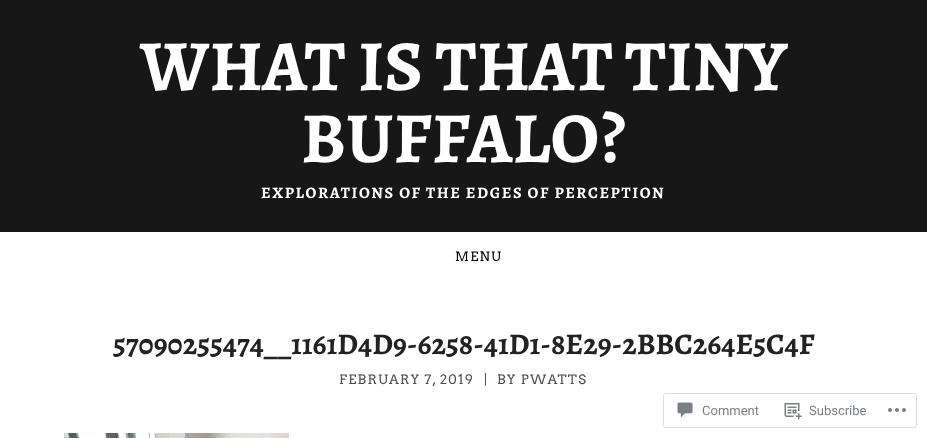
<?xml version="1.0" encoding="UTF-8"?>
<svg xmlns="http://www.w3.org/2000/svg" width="927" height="438">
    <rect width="100%" height="100%" fill="#FFFFFF"/>
    <rect x="0" y="0" width="927" height="232" fill="#171717"/>
    <text x="140" y="90" font-family="Alegreya" font-size="72" font-weight="700" fill="#FFFFFF">WHAT IS THAT TINY</text>
    <text x="301" y="162" font-family="Alegreya" font-size="72" font-weight="700" fill="#FFFFFF">BUFFALO?</text>
    <text x="261" y="198" font-family="Alegreya" font-size="16" font-weight="700" letter-spacing="1.6" fill="#FFFFFF">EXPLORATIONS OF THE EDGES OF PERCEPTION</text>
    <text x="455" y="261" font-family="Arvo" font-size="13" letter-spacing="1.25" fill="#000000">MENU</text>
    <text x="113" y="354" font-family="Alegreya" font-size="30" font-weight="700" fill="#222222">57090255474__1161D4D9-6258-41D1-8E29-2BBC264E5C4F</text>
    <text x="339" y="384" font-family="Arvo" font-size="13" letter-spacing="1.25" fill="#4D4D4D">FEBRUARY 7, 2019</text>
    <text x="484" y="384" font-family="Arvo" font-size="13" letter-spacing="1.25" fill="#4D4D4D">|</text>
    <text x="497" y="384" font-family="Arvo" font-size="13" letter-spacing="1.25" fill="#4D4D4D">BY PWATTS</text>
    <image x="64" y="433" width="225" height="5" href="img_01.png"/>
    <rect x="663.5" y="393.5" width="253" height="34" rx="2.5" fill="none" stroke="#DDDDDF"/>
    <image x="677" y="402" width="16" height="16" href="img_02.png"/>
    <text x="702" y="415" font-family="Roboto" font-size="13" fill="#7B7F85">Comment</text>
    <image x="784" y="403" width="18" height="17" href="img_03.png"/>
    <text x="809" y="415" font-family="Roboto" font-size="13" fill="#7B7F85">Subscribe</text>
    <image x="888" y="408" width="18" height="4" href="img_04.png"/>
</svg>
